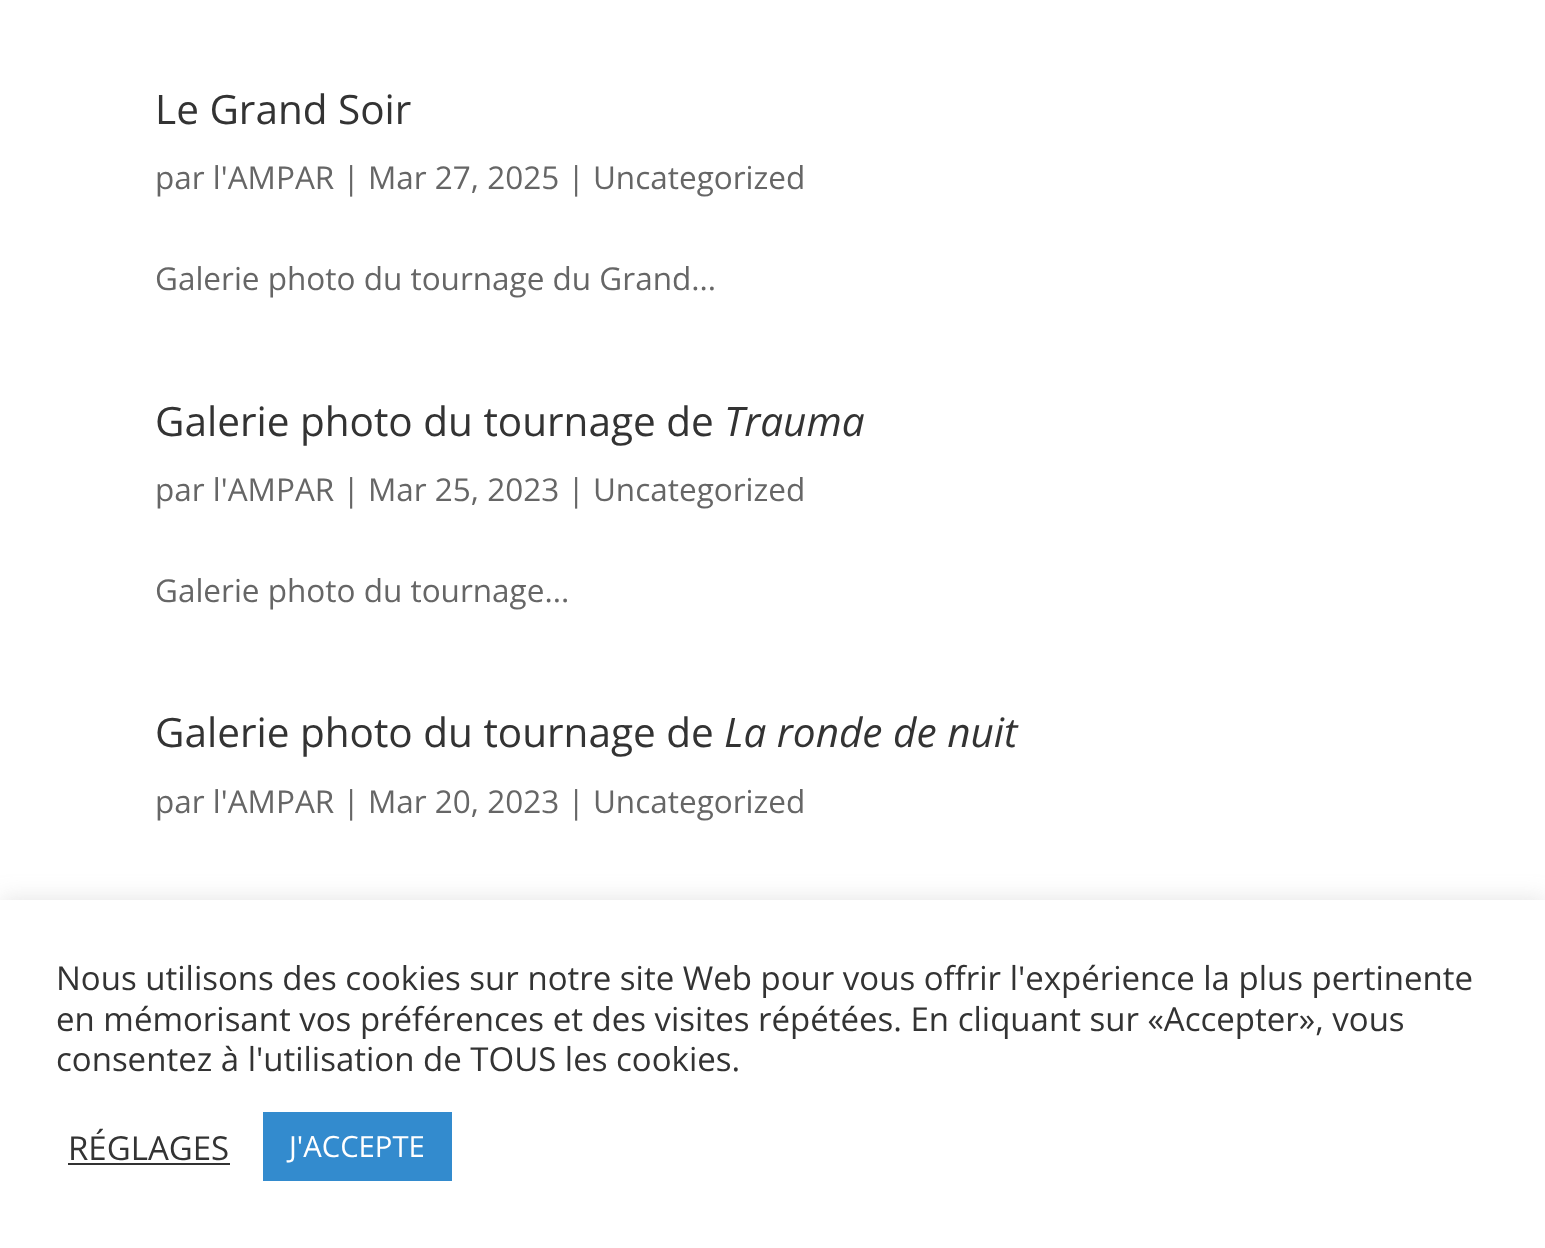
<?xml version="1.0" encoding="UTF-8"?>
<svg xmlns="http://www.w3.org/2000/svg" width="1545" height="1248">
    <defs>
        <filter id="blur1" x="-50%" y="-200%" width="200%" height="500%"><feGaussianBlur stdDeviation="11"/></filter>
    </defs>
    <rect width="100%" height="100%" fill="#FFFFFF"/>
    <text x="155" y="124" font-family="Open Sans" font-size="40.5" fill="#333333">Le Grand Soir</text>
    <text x="155" y="189" font-family="Open Sans" font-size="31.5" fill="#666666">par l'AMPAR | Mar 27, 2025 | Uncategorized</text>
    <text x="155" y="290" font-family="Open Sans" font-size="31.5" fill="#666666">Galerie photo du tournage du Grand...</text>
    <text x="155" y="436" font-family="Open Sans" font-size="40.5" fill="#333333">Galerie photo du tournage de</text>
    <text x="724" y="436" font-family="Open Sans" font-size="40.5" font-style="italic" fill="#333333">Trauma</text>
    <text x="155" y="501" font-family="Open Sans" font-size="31.5" fill="#666666">par l'AMPAR | Mar 25, 2023 | Uncategorized</text>
    <text x="155" y="602" font-family="Open Sans" font-size="31.5" fill="#666666">Galerie photo du tournage...</text>
    <text x="155" y="747" font-family="Open Sans" font-size="40.5" fill="#333333">Galerie photo du tournage de</text>
    <text x="724" y="747" font-family="Open Sans" font-size="40.5" font-style="italic" fill="#333333">La ronde de nuit</text>
    <text x="155" y="813" font-family="Open Sans" font-size="31.5" fill="#666666">par l'AMPAR | Mar 20, 2023 | Uncategorized</text>
    <rect x="0" y="898" width="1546" height="349" fill="#ACABAB" fill-opacity="0.3" filter="url(#blur1)"/>
    <rect x="0" y="900" width="1545" height="348" fill="#FFFFFF"/>
    <text font-family="Open Sans" font-size="33" fill="#333333">
        <tspan x="56" y="990">Nous utilisons des cookies sur notre site Web pour vous offrir l'expérience la plus pertinente</tspan>
        <tspan x="56" y="1031">en mémorisant vos préférences et des visites répétées. En cliquant sur «Accepter», vous</tspan>
        <tspan x="56" y="1071">consentez à l'utilisation de TOUS les cookies.</tspan>
    </text>
    <text x="68" y="1160" font-family="Open Sans" font-size="33" fill="#333333">RÉGLAGES</text>
    <rect x="68" y="1163" width="162" height="2" fill="#333333"/>
    <rect x="263" y="1112" width="189" height="69" fill="#338BCE"/>
    <text x="289" y="1157" font-family="Open Sans" font-size="29.25" fill="#FFFFFF">J'ACCEPTE</text>
</svg>
